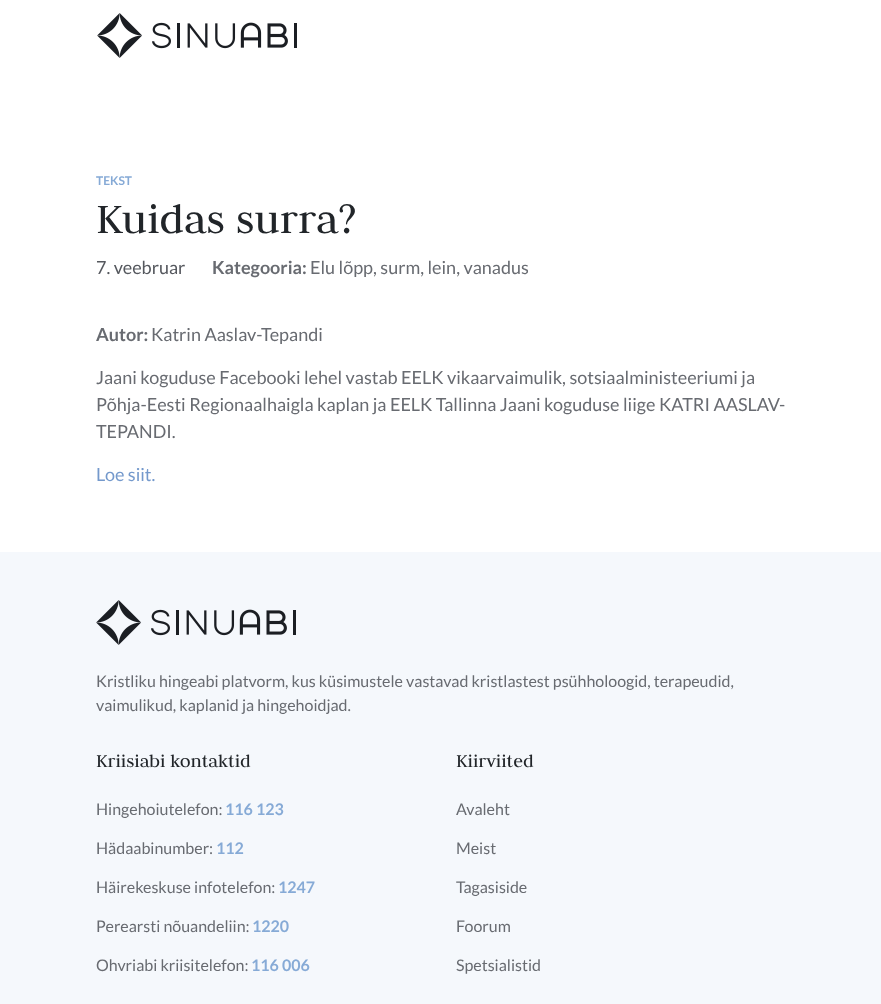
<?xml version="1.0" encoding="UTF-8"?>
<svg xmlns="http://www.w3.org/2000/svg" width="881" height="1004">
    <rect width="100%" height="100%" fill="#FFFFFF"/>
    <image x="97" y="13" width="200" height="45" href="img_01.png"/>
    <text x="96" y="185" font-family="Lato" font-size="12" font-weight="700" fill="#86AAD6">TEKST</text>
    <text x="96" y="233" font-family="Judson" font-size="46" fill="#212529">Kuidas surra?</text>
    <text x="96" y="274" font-family="Lato" font-size="18" fill="#55585E">7. veebruar</text>
    <text x="212" y="274" font-family="Lato" font-size="18" font-weight="700" fill="#686B71">Kategooria:</text>
    <text x="310" y="274" font-family="Lato" font-size="18" fill="#686B71">Elu lõpp, surm, lein, vanadus</text>
    <text x="96" y="341" font-family="Lato" font-size="18" font-weight="700" fill="#686B71">Autor:</text>
    <text x="151" y="341" font-family="Lato" font-size="18" fill="#686B71">Katrin Aaslav-Tepandi</text>
    <text font-family="Lato" font-size="18" fill="#686B71">
        <tspan x="96" y="384">Jaani koguduse Facebooki lehel vastab EELK vikaarvaimulik, sotsiaalministeeriumi ja</tspan>
        <tspan x="96" y="411">Põhja-Eesti Regionaalhaigla kaplan ja EELK Tallinna Jaani koguduse liige KATRI AASLAV-</tspan>
        <tspan x="96" y="438">TEPANDI.</tspan>
    </text>
    <text x="96" y="481" font-family="Lato" font-size="18" fill="#7499CC">Loe siit.</text>
    <rect x="0" y="552" width="881" height="452" fill="#F5F8FC"/>
    <image x="96" y="600" width="200" height="45" href="img_02.png"/>
    <text font-family="Lato" font-size="16" fill="#686B71">
        <tspan x="96" y="687">Kristliku hingeabi platvorm, kus küsimustele vastavad kristlastest psühholoogid, terapeudid,</tspan>
        <tspan x="96" y="711">vaimulikud, kaplanid ja hingehoidjad.</tspan>
    </text>
    <text x="96" y="767" font-family="Judson" font-size="20" fill="#212529">Kriisiabi kontaktid</text>
    <text x="96" y="815" font-family="Lato" font-size="16" fill="#686B71">Hingehoiutelefon:</text>
    <text x="225" y="815" font-family="Lato" font-size="16" font-weight="700" fill="#86AAD6">116 123</text>
    <text x="96" y="854" font-family="Lato" font-size="16" fill="#686B71">Hädaabinumber:</text>
    <text x="216" y="854" font-family="Lato" font-size="16" font-weight="700" fill="#86AAD6">112</text>
    <text x="96" y="893" font-family="Lato" font-size="16" fill="#686B71">Häirekeskuse infotelefon:</text>
    <text x="278" y="893" font-family="Lato" font-size="16" font-weight="700" fill="#86AAD6">1247</text>
    <text x="96" y="932" font-family="Lato" font-size="16" fill="#686B71">Perearsti nõuandeliin:</text>
    <text x="252" y="932" font-family="Lato" font-size="16" font-weight="700" fill="#86AAD6">1220</text>
    <text x="96" y="971" font-family="Lato" font-size="16" fill="#686B71">Ohvriabi kriisitelefon:</text>
    <text x="251" y="971" font-family="Lato" font-size="16" font-weight="700" fill="#86AAD6">116 006</text>
    <text x="456" y="767" font-family="Judson" font-size="20" fill="#212529">Kiirviited</text>
    <text x="456" y="815" font-family="Lato" font-size="16" fill="#686B71">Avaleht</text>
    <text x="456" y="854" font-family="Lato" font-size="16" fill="#686B71">Meist</text>
    <text x="456" y="893" font-family="Lato" font-size="16" fill="#686B71">Tagasiside</text>
    <text x="456" y="932" font-family="Lato" font-size="16" fill="#686B71">Foorum</text>
    <text x="456" y="971" font-family="Lato" font-size="16" fill="#686B71">Spetsialistid</text>
</svg>
